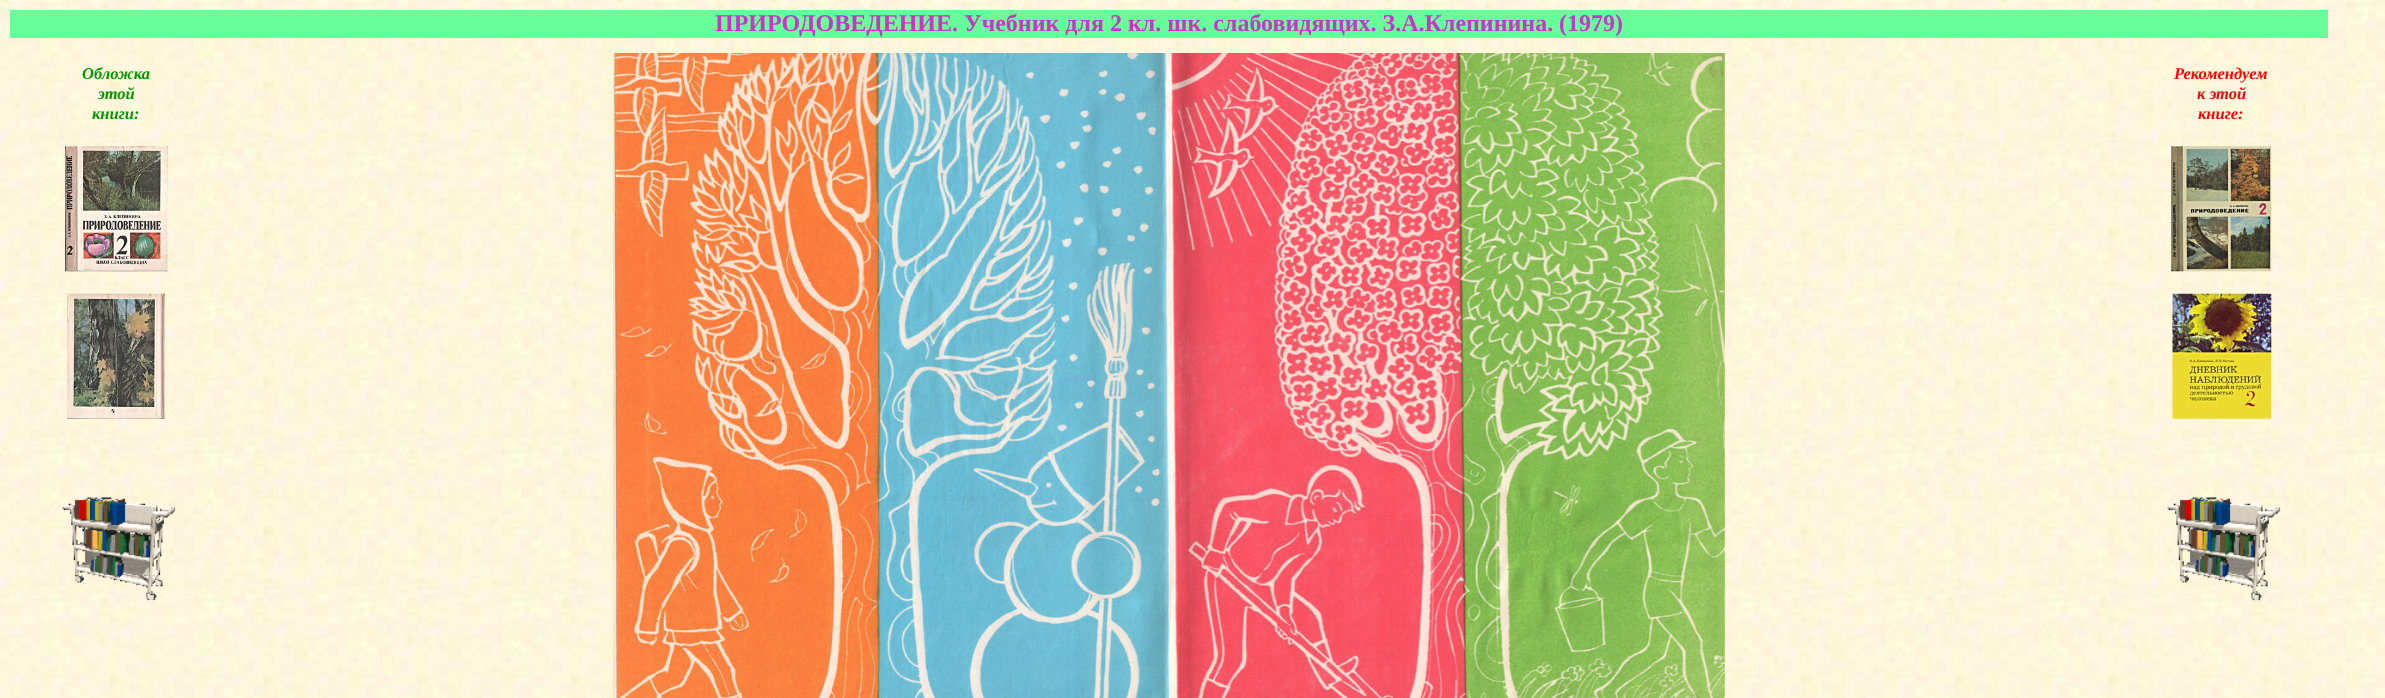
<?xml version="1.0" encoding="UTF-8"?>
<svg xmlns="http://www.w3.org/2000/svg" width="2385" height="698">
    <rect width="100%" height="100%" fill="#FFFFFF"/>
    <image x="0" y="0" width="2385" height="698" href="img_01.png"/>
    <rect x="10" y="10" width="2318" height="28" fill="#66FF99"/>
    <text x="715" y="31" font-family="Liberation Serif" font-size="24" font-weight="700" fill="#CC33CC">ПРИРОДОВЕДЕНИЕ. Учебник для 2 кл. шк. слабовидящих. З.А.Клепинина.</text>
    <text x="1559" y="31" font-family="Liberation Serif" font-size="24" font-weight="700" fill="#CC33CC">(1979)</text>
    <text x="82" y="79" font-family="Liberation Serif" font-size="16.5" font-weight="700" font-style="italic" fill="#009900">Обложка</text>
    <text x="98" y="99" font-family="Liberation Serif" font-size="16.5" font-weight="700" font-style="italic" fill="#009900">этой</text>
    <text x="92" y="119" font-family="Liberation Serif" font-size="16.5" font-weight="700" font-style="italic" fill="#009900">книги:</text>
    <image x="65" y="146" width="103" height="126" href="img_02.png"/>
    <image x="67" y="293" width="98" height="126" href="img_03.png"/>
    <image x="62" y="497" width="114" height="104" href="img_04.png"/>
    <image x="613" y="53" width="1112" height="645" href="img_05.png"/>
    <text x="2174" y="79" font-family="Liberation Serif" font-size="16.5" font-weight="700" font-style="italic" fill="#FF0000">Рекомендуем</text>
    <text x="2197" y="99" font-family="Liberation Serif" font-size="16.5" font-weight="700" font-style="italic" fill="#FF0000">к этой</text>
    <text x="2198" y="119" font-family="Liberation Serif" font-size="16.5" font-weight="700" font-style="italic" fill="#FF0000">книге:</text>
    <image x="2171" y="146" width="101" height="126" href="img_06.png"/>
    <image x="2172" y="293" width="100" height="126" href="img_07.png"/>
    <image x="2167" y="497" width="114" height="104" href="img_08.png"/>
</svg>
